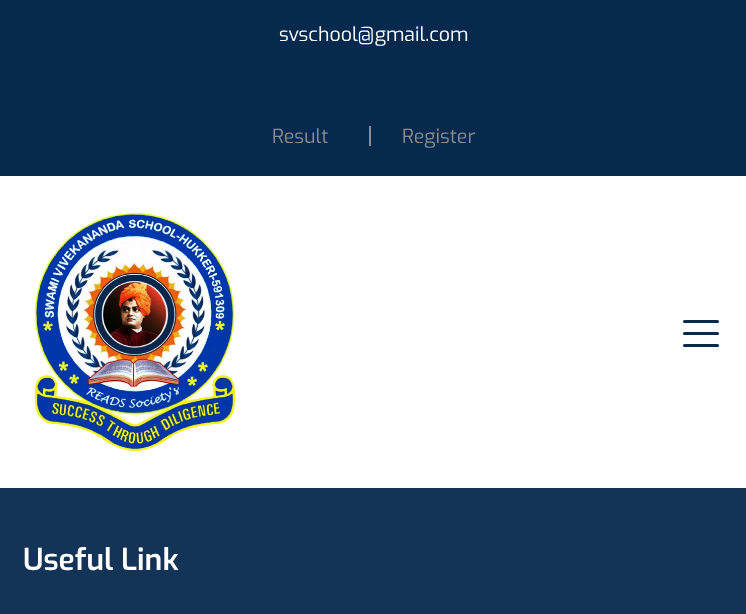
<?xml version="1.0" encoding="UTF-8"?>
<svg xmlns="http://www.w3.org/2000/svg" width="746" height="614">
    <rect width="100%" height="100%" fill="#133456"/>
    <rect x="0" y="176" width="746" height="312" fill="#FFFFFF"/>
    <rect x="0" y="0" width="746" height="176" fill="#07294D"/>
    <text x="279" y="41" font-family="Exo" font-size="19.5" fill="#FFFFFF">svschool@gmail.com</text>
    <text x="272" y="143" font-family="Exo" font-size="19.5" fill="#8D8D8D">Result</text>
    <rect x="369" y="126" width="2" height="20" fill="#8D8D8D"/>
    <text x="402" y="143" font-family="Exo" font-size="19.5" fill="#8D8D8D">Register</text>
    <image x="34" y="212" width="202" height="240" href="img_01.png"/>
    <rect x="683" y="344" width="36" height="3" rx="1.5" fill="#07294D"/>
    <rect x="683" y="332" width="36" height="3" rx="1.5" fill="#07294D"/>
    <rect x="683" y="320" width="36" height="3" rx="1.5" fill="#07294D"/>
    <text x="23" y="570" font-family="Exo" font-size="30" font-weight="600" fill="#FFFFFF">Useful Link</text>
</svg>
